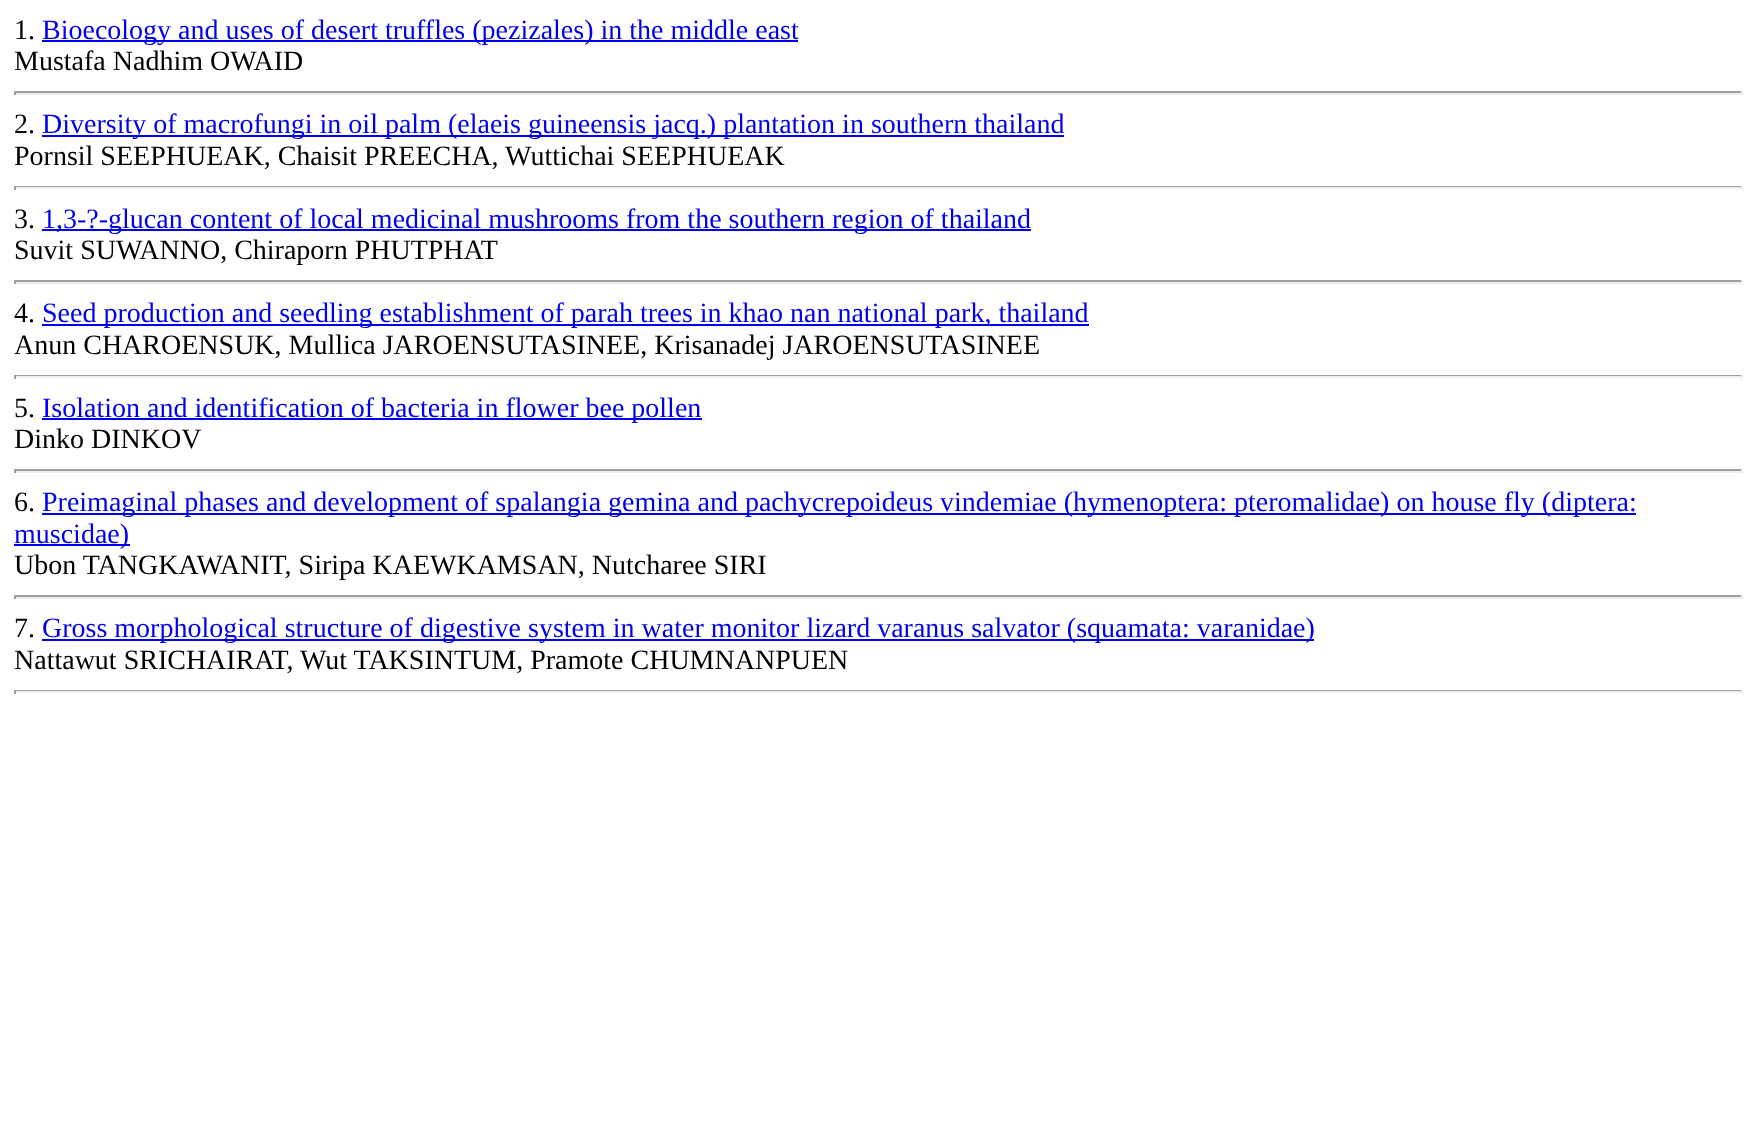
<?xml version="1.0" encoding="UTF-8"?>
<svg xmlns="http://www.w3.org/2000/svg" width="1756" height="1139">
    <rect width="100%" height="100%" fill="#FFFFFF"/>
    <text x="14" y="39" font-family="Liberation Serif" font-size="28" fill="#000000">1.</text>
    <rect x="42" y="40" width="756" height="2" fill="#0000EE"/>
    <text x="42" y="39" font-family="Liberation Serif" font-size="28" fill="#0000EE">Bioecology and uses of desert truffles (pezizales) in the middle east</text>
    <text x="14" y="70" font-family="Liberation Serif" font-size="28" fill="#000000">Mustafa Nadhim OWAID</text>
    <rect x="14" y="91" width="1729" height="2" fill="#9F9F9F"/>
    <rect x="1741" y="91" width="2" height="4" fill="#EEEEEE"/>
    <rect x="14" y="93" width="1729" height="2" fill="#EEEEEE"/>
    <rect x="14" y="91" width="2" height="4" fill="#9F9F9F"/>
    <text x="14" y="133" font-family="Liberation Serif" font-size="28" fill="#000000">2.</text>
    <rect x="42" y="135" width="1022" height="2" fill="#0000EE"/>
    <text x="42" y="133" font-family="Liberation Serif" font-size="28" fill="#0000EE">Diversity of macrofungi in oil palm (elaeis guineensis jacq.) plantation in southern thailand</text>
    <text x="14" y="165" font-family="Liberation Serif" font-size="28" fill="#000000">Pornsil SEEPHUEAK, Chaisit PREECHA, Wuttichai SEEPHUEAK</text>
    <rect x="14" y="186" width="1729" height="1" fill="#9F9F9F"/>
    <rect x="1741" y="186" width="2" height="4" fill="#EEEEEE"/>
    <rect x="14" y="187" width="1729" height="2" fill="#EEEEEE"/>
    <rect x="14" y="186" width="2" height="4" fill="#9F9F9F"/>
    <text x="14" y="228" font-family="Liberation Serif" font-size="28" fill="#000000">3.</text>
    <rect x="42" y="229" width="989" height="2" fill="#0000EE"/>
    <text x="42" y="228" font-family="Liberation Serif" font-size="28" fill="#0000EE">1,3-?-glucan content of local medicinal mushrooms from the southern region of thailand</text>
    <text x="14" y="259" font-family="Liberation Serif" font-size="28" fill="#000000">Suvit SUWANNO, Chiraporn PHUTPHAT</text>
    <rect x="14" y="280" width="1729" height="2" fill="#9F9F9F"/>
    <rect x="1741" y="280" width="2" height="4" fill="#EEEEEE"/>
    <rect x="14" y="282" width="1729" height="2" fill="#EEEEEE"/>
    <rect x="14" y="280" width="2" height="4" fill="#9F9F9F"/>
    <text x="14" y="322" font-family="Liberation Serif" font-size="28" fill="#000000">4.</text>
    <rect x="42" y="324" width="1047" height="2" fill="#0000EE"/>
    <text x="42" y="322" font-family="Liberation Serif" font-size="28" fill="#0000EE">Seed production and seedling establishment of parah trees in khao nan national park, thailand</text>
    <text x="14" y="354" font-family="Liberation Serif" font-size="28" fill="#000000">Anun CHAROENSUK, Mullica JAROENSUTASINEE, Krisanadej JAROENSUTASINEE</text>
    <rect x="14" y="375" width="1729" height="1" fill="#9F9F9F"/>
    <rect x="1741" y="375" width="2" height="4" fill="#EEEEEE"/>
    <rect x="14" y="376" width="1729" height="2" fill="#EEEEEE"/>
    <rect x="14" y="375" width="2" height="4" fill="#9F9F9F"/>
    <text x="14" y="417" font-family="Liberation Serif" font-size="28" fill="#000000">5.</text>
    <rect x="42" y="418" width="660" height="2" fill="#0000EE"/>
    <text x="42" y="417" font-family="Liberation Serif" font-size="28" fill="#0000EE">Isolation and identification of bacteria in flower bee pollen</text>
    <text x="14" y="448" font-family="Liberation Serif" font-size="28" fill="#000000">Dinko DINKOV</text>
    <rect x="14" y="469" width="1729" height="2" fill="#9F9F9F"/>
    <rect x="1741" y="469" width="2" height="4" fill="#EEEEEE"/>
    <rect x="14" y="471" width="1729" height="2" fill="#EEEEEE"/>
    <rect x="14" y="469" width="2" height="4" fill="#9F9F9F"/>
    <text x="14" y="511" font-family="Liberation Serif" font-size="28" fill="#000000">6.</text>
    <rect x="42" y="513" width="1594" height="2" fill="#0000EE"/>
    <text x="42" y="511" font-family="Liberation Serif" font-size="28" fill="#0000EE">Preimaginal phases and development of spalangia gemina and pachycrepoideus vindemiae (hymenoptera: pteromalidae) on house fly (diptera:</text>
    <rect x="14" y="544" width="116" height="2" fill="#0000EE"/>
    <text x="14" y="543" font-family="Liberation Serif" font-size="28" fill="#0000EE">muscidae)</text>
    <text x="14" y="574" font-family="Liberation Serif" font-size="28" fill="#000000">Ubon TANGKAWANIT, Siripa KAEWKAMSAN, Nutcharee SIRI</text>
    <rect x="14" y="595" width="1729" height="2" fill="#9F9F9F"/>
    <rect x="1741" y="595" width="2" height="4" fill="#EEEEEE"/>
    <rect x="14" y="597" width="1729" height="2" fill="#EEEEEE"/>
    <rect x="14" y="595" width="2" height="4" fill="#9F9F9F"/>
    <text x="14" y="637" font-family="Liberation Serif" font-size="28" fill="#000000">7.</text>
    <rect x="42" y="639" width="1272" height="2" fill="#0000EE"/>
    <text x="42" y="637" font-family="Liberation Serif" font-size="28" fill="#0000EE">Gross morphological structure of digestive system in water monitor lizard varanus salvator (squamata: varanidae)</text>
    <text x="14" y="669" font-family="Liberation Serif" font-size="28" fill="#000000">Nattawut SRICHAIRAT, Wut TAKSINTUM, Pramote CHUMNANPUEN</text>
    <rect x="14" y="690" width="1729" height="1" fill="#9F9F9F"/>
    <rect x="1741" y="690" width="2" height="4" fill="#EEEEEE"/>
    <rect x="14" y="691" width="1729" height="2" fill="#EEEEEE"/>
    <rect x="14" y="690" width="2" height="4" fill="#9F9F9F"/>
</svg>
